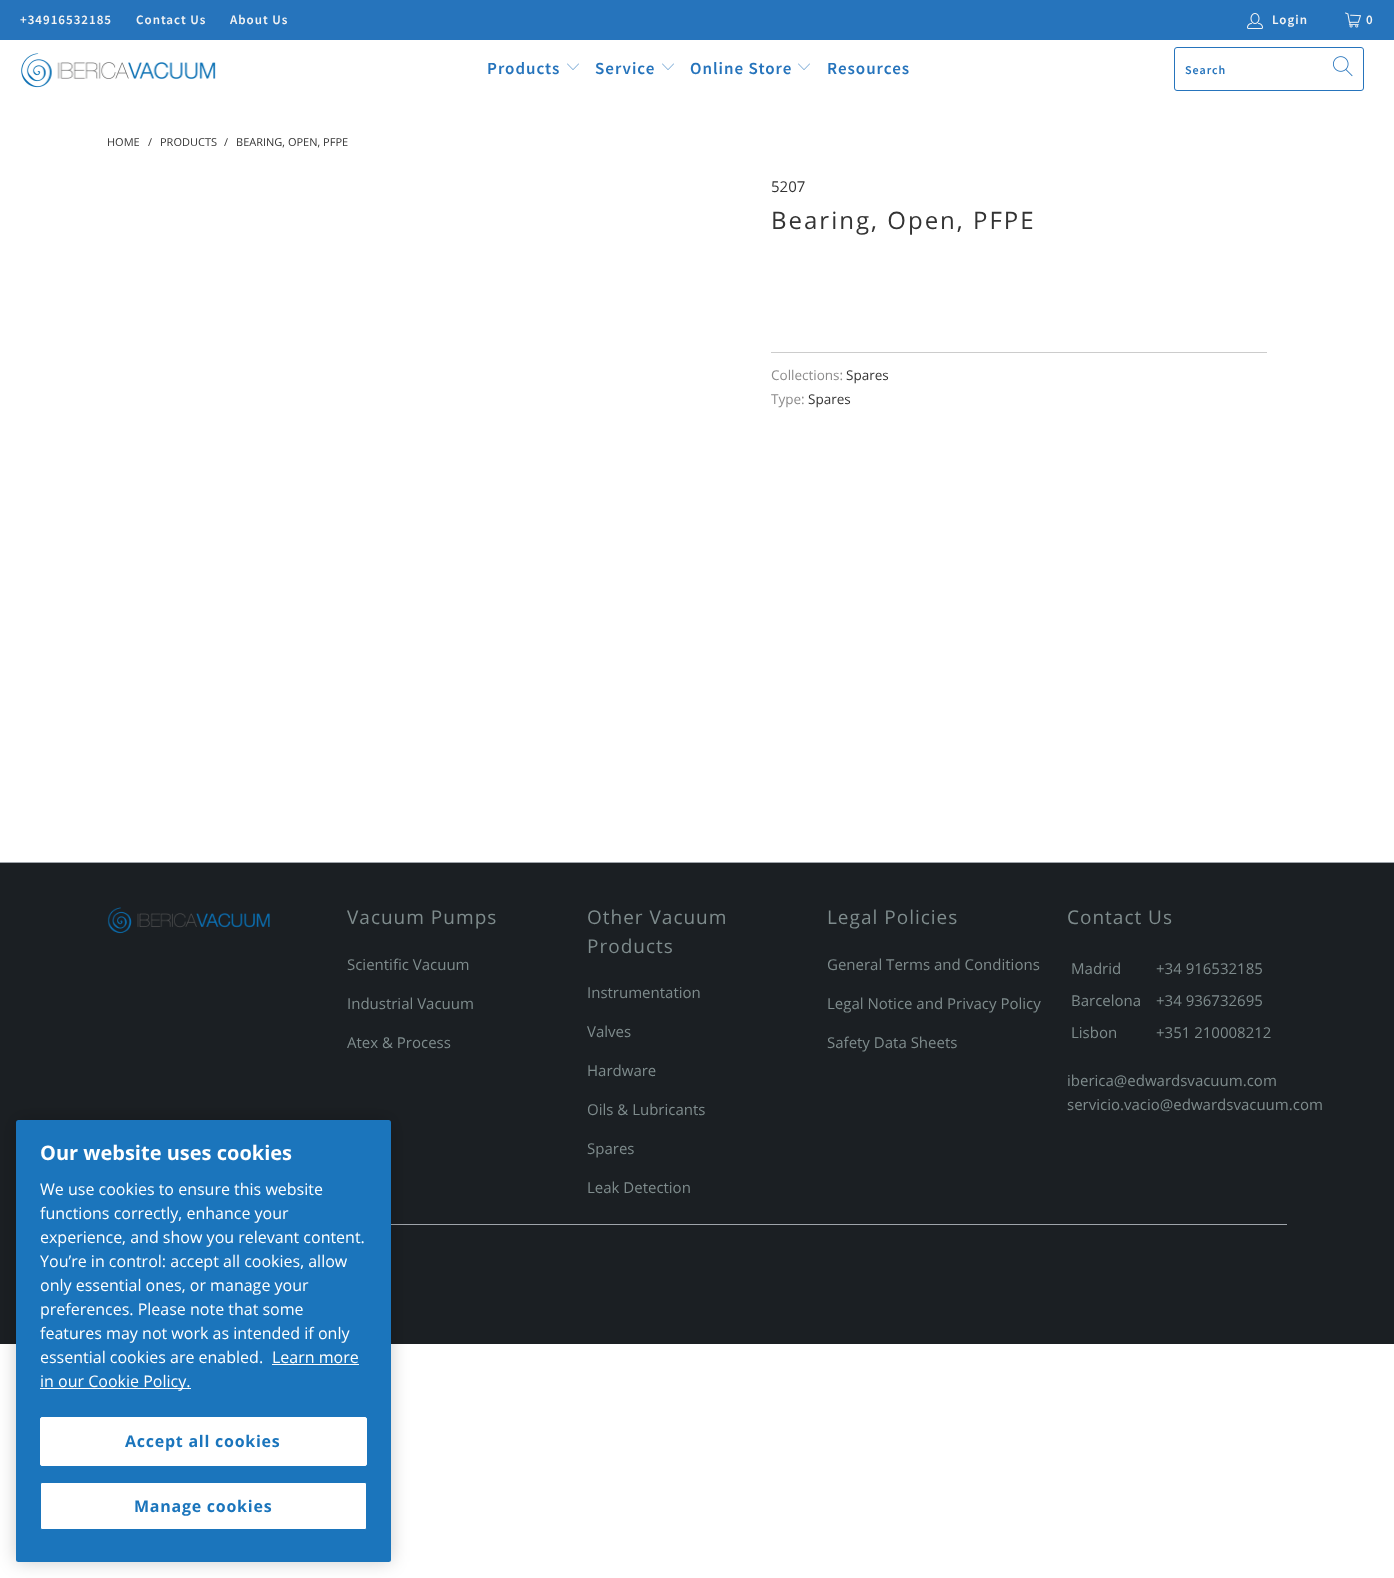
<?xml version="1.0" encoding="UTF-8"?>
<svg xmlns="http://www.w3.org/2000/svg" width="1394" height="1578">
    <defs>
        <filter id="blur1" x="-50%" y="-200%" width="200%" height="500%"><feGaussianBlur stdDeviation="9"/></filter>
    </defs>
    <rect width="100%" height="100%" fill="#FFFFFF"/>
    <rect x="0" y="0" width="1394" height="40" fill="#2674BC"/>
    <text x="20" y="24" font-family="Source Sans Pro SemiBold" font-size="13" font-weight="600" letter-spacing="1" fill="#F4F4F4">+34916532185</text>
    <text x="136" y="24" font-family="Source Sans Pro SemiBold" font-size="13" font-weight="600" letter-spacing="1" fill="#F4F4F4">Contact Us</text>
    <text x="230" y="24" font-family="Source Sans Pro SemiBold" font-size="13" font-weight="600" letter-spacing="1" fill="#F4F4F4">About Us</text>
    <image x="1247" y="13" width="16" height="16" href="img_01.png"/>
    <text x="1272" y="24" font-family="Source Sans Pro SemiBold" font-size="13" font-weight="600" letter-spacing="1" fill="#F4F4F4">Login</text>
    <image x="1345" y="12" width="16" height="16" href="img_02.png"/>
    <text x="1366" y="24" font-family="Source Sans Pro SemiBold" font-size="13" font-weight="600" letter-spacing="1" fill="#F4F4F4">0</text>
    <image x="21" y="53" width="195" height="35" href="img_03.png"/>
    <text x="487" y="74" font-family="Source Sans Pro SemiBold" font-size="17" font-weight="600" letter-spacing="1" fill="#2674BC">Products</text>
    <image x="567" y="63" width="12" height="7" href="img_04.png"/>
    <text x="595" y="74" font-family="Source Sans Pro SemiBold" font-size="17" font-weight="600" letter-spacing="1" fill="#2674BC">Service</text>
    <image x="662" y="63" width="12" height="7" href="img_04.png"/>
    <text x="690" y="74" font-family="Source Sans Pro SemiBold" font-size="17" font-weight="600" letter-spacing="1" fill="#2674BC">Online Store</text>
    <image x="798" y="63" width="12" height="7" href="img_04.png"/>
    <text x="827" y="74" font-family="Source Sans Pro SemiBold" font-size="17" font-weight="600" letter-spacing="1" fill="#2674BC">Resources</text>
    <rect x="1174.5" y="47.5" width="189" height="43" rx="2.5" fill="none" stroke="#2674BC"/>
    <text x="1185" y="74" font-family="Source Sans Pro SemiBold" font-size="12" font-weight="600" letter-spacing="1" fill="#2674BC">Search</text>
    <image x="1333" y="56" width="20" height="21" href="img_05.png"/>
    <text x="107" y="146" font-family="Open Sans" font-size="11" fill="#333333">HOME</text>
    <text x="148" y="146" font-family="Open Sans" font-size="11" fill="#333333">/</text>
    <text x="160" y="146" font-family="Open Sans" font-size="11" fill="#333333">PRODUCTS</text>
    <text x="224" y="146" font-family="Open Sans" font-size="11" fill="#333333">/</text>
    <text x="236" y="146" font-family="Open Sans" font-size="11" fill="#333333">BEARING, OPEN, PFPE</text>
    <text x="771" y="192" font-family="Open Sans" font-size="15" fill="#333333">5207</text>
    <text x="771" y="229" font-family="Open Sans" font-size="24" letter-spacing="2" fill="#333333">Bearing, Open, PFPE</text>
    <rect x="771" y="352" width="496" height="1" fill="#CCCCCC"/>
    <text x="771" y="380" font-family="Open Sans" font-size="13.5" fill="#8C8B8B">Collections:</text>
    <text x="846" y="380" font-family="Open Sans" font-size="13.5" fill="#333333">Spares</text>
    <text x="771" y="404" font-family="Open Sans" font-size="13.5" fill="#8C8B8B">Type:</text>
    <text x="808" y="404" font-family="Open Sans" font-size="13.5" fill="#333333">Spares</text>
    <rect x="0" y="863" width="1394" height="481" fill="#1B1F23"/>
    <rect x="0" y="862" width="1394" height="1" fill="#9FA4AA"/>
    <image x="107" y="907" width="163" height="27" href="img_06.png"/>
    <text x="347" y="924" font-family="Open Sans" font-size="19" letter-spacing="1" fill="#7F8C8D">Vacuum Pumps</text>
    <text x="347" y="970" font-family="Open Sans" font-size="15" fill="#7F8C8D">Scientific Vacuum</text>
    <text x="347" y="1009" font-family="Open Sans" font-size="15" fill="#7F8C8D">Industrial Vacuum</text>
    <text x="347" y="1048" font-family="Open Sans" font-size="15" fill="#7F8C8D">Atex &amp; Process</text>
    <text font-family="Open Sans" font-size="19" letter-spacing="1" fill="#7F8C8D">
        <tspan x="587" y="924">Other Vacuum</tspan>
        <tspan x="587" y="953">Products</tspan>
    </text>
    <text x="587" y="998" font-family="Open Sans" font-size="15" fill="#7F8C8D">Instrumentation</text>
    <text x="587" y="1037" font-family="Open Sans" font-size="15" fill="#7F8C8D">Valves</text>
    <text x="587" y="1076" font-family="Open Sans" font-size="15" fill="#7F8C8D">Hardware</text>
    <text x="587" y="1115" font-family="Open Sans" font-size="15" fill="#7F8C8D">Oils &amp; Lubricants</text>
    <text x="587" y="1154" font-family="Open Sans" font-size="15" fill="#7F8C8D">Spares</text>
    <text x="587" y="1193" font-family="Open Sans" font-size="15" fill="#7F8C8D">Leak Detection</text>
    <text x="827" y="924" font-family="Open Sans" font-size="19" letter-spacing="1" fill="#7F8C8D">Legal Policies</text>
    <text x="827" y="970" font-family="Open Sans" font-size="15" fill="#7F8C8D">General Terms and Conditions</text>
    <text x="827" y="1009" font-family="Open Sans" font-size="15" fill="#7F8C8D">Legal Notice and Privacy Policy</text>
    <text x="827" y="1048" font-family="Open Sans" font-size="15" fill="#7F8C8D">Safety Data Sheets</text>
    <text x="1067" y="924" font-family="Open Sans" font-size="19" letter-spacing="1" fill="#7F8C8D">Contact Us</text>
    <text x="1071" y="974" font-family="Open Sans" font-size="15" fill="#7F8C8D">Madrid</text>
    <text x="1156" y="974" font-family="Open Sans" font-size="15" fill="#7F8C8D">+34 916532185</text>
    <text x="1071" y="1006" font-family="Open Sans" font-size="15" fill="#7F8C8D">Barcelona</text>
    <text x="1156" y="1006" font-family="Open Sans" font-size="15" fill="#7F8C8D">+34 936732695</text>
    <text x="1071" y="1038" font-family="Open Sans" font-size="15" fill="#7F8C8D">Lisbon</text>
    <text x="1156" y="1038" font-family="Open Sans" font-size="15" fill="#7F8C8D">+351 210008212</text>
    <text font-family="Open Sans" font-size="15" fill="#7F8C8D">
        <tspan x="1067" y="1086">iberica@edwardsvacuum.com</tspan>
        <tspan x="1067" y="1110">servicio.vacio@edwardsvacuum.com</tspan>
    </text>
    <rect x="391" y="1224" width="896" height="1" fill="#9FA4AA"/>
    <rect x="16" y="1120" width="375" height="442" rx="2.5" fill="#000000" fill-opacity="0.2" filter="url(#blur1)"/>
    <rect x="16" y="1120" width="375" height="442" rx="2.5" fill="#1B75BC"/>
    <text x="40" y="1160" font-family="Open Sans" font-size="20" font-weight="700" fill="#FFFFFF">Our website uses cookies</text>
    <text font-family="Open Sans" font-size="16" fill="#FFFFFF">
        <tspan x="40" y="1195">We use cookies to ensure this website</tspan>
        <tspan x="40" y="1219">functions correctly, enhance your</tspan>
        <tspan x="40" y="1243">experience, and show you relevant content.</tspan>
        <tspan x="40" y="1267">You’re in control: accept all cookies, allow</tspan>
        <tspan x="40" y="1291">only essential ones, or manage your</tspan>
        <tspan x="40" y="1315">preferences. Please note that some</tspan>
        <tspan x="40" y="1339">features may not work as intended if only</tspan>
        <tspan x="40" y="1363">essential cookies are enabled.</tspan>
    </text>
    <text x="272" y="1363" font-family="Open Sans" font-size="16" fill="#FFFFFF">Learn more</text>
    <rect x="272" y="1364" width="87" height="1" fill="#FFFFFF"/>
    <rect x="40" y="1388" width="151" height="1" fill="#FFFFFF"/>
    <text x="40" y="1387" font-family="Open Sans" font-size="16" fill="#FFFFFF">in our Cookie Policy.</text>
    <rect x="40.5" y="1417.5" width="326" height="48" rx="1.5" fill="#FFFFFF" stroke="#FFFFFF"/>
    <text x="125" y="1447" font-family="Open Sans" font-size="16" font-weight="700" letter-spacing="0.75" fill="#1B75BC">Accept all cookies</text>
    <rect x="40.5" y="1482.5" width="326" height="47" rx="1.5" fill="#FFFFFF" stroke="#1B75BC"/>
    <text x="134" y="1512" font-family="Open Sans" font-size="16" font-weight="700" letter-spacing="0.75" fill="#1B75BC">Manage cookies</text>
</svg>
